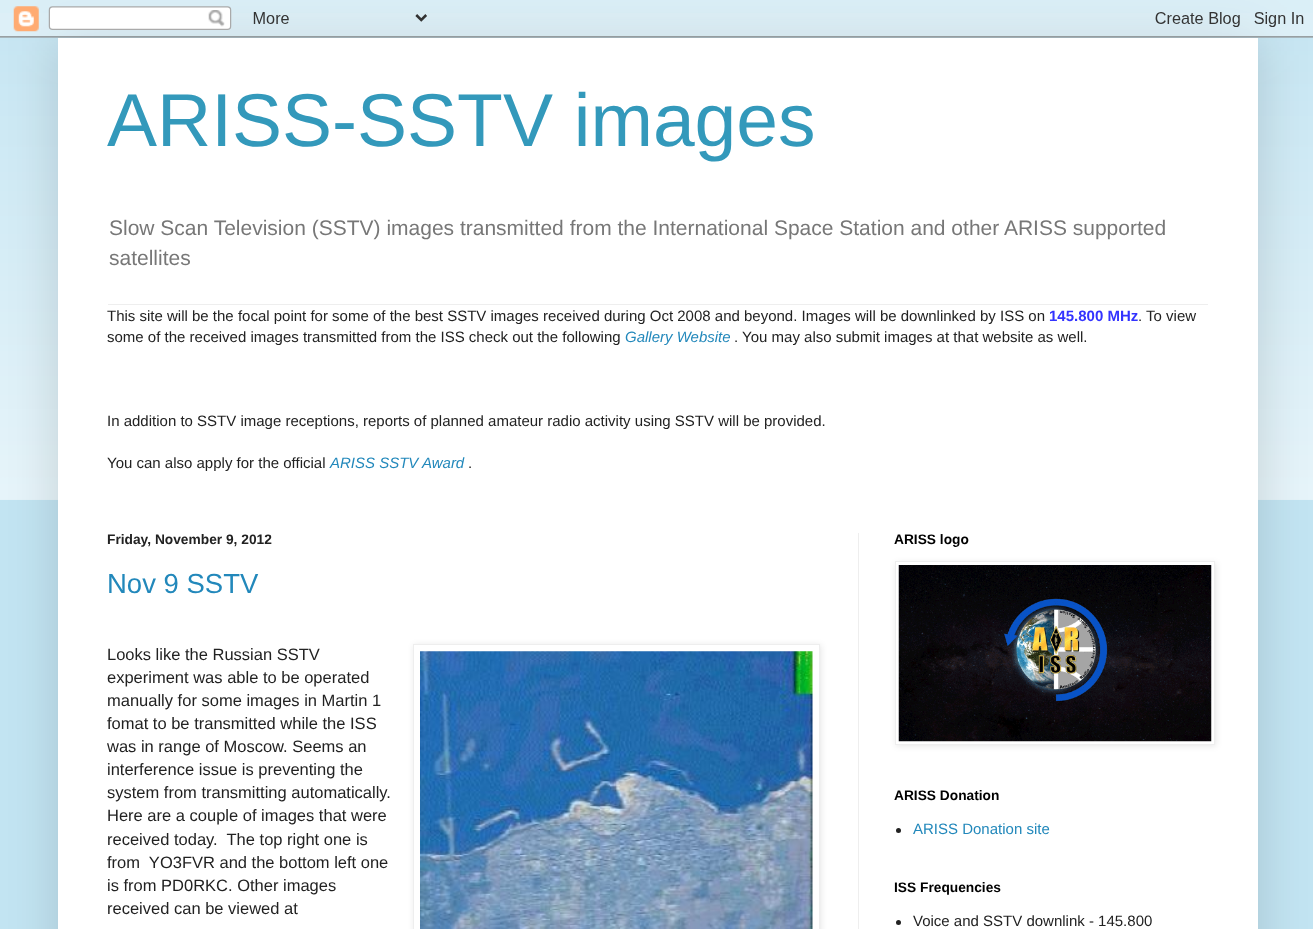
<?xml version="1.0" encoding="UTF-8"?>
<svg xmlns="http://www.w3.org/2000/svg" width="1313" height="929">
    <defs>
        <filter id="blur1" x="-50%" y="-200%" width="200%" height="500%"><feGaussianBlur stdDeviation="25"/></filter>
        <clipPath id="clip1"><path d="M 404 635 H 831 V 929 H 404 Z M 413 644 H 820 V 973 H 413 Z" clip-rule="evenodd"/></clipPath>
        <filter id="blur2" x="-50%" y="-200%" width="200%" height="500%"><feGaussianBlur stdDeviation="3"/></filter>
    </defs>
    <rect width="100%" height="100%" fill="#C2E4F2"/>
    <image x="0" y="13" width="1313" height="487" href="img_02.png"/>
    <rect x="58" y="38" width="1200" height="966" fill="#000000" fill-opacity="0.15" filter="url(#blur1)"/>
    <image x="0" y="0" width="1313" height="38" href="img_01.png"/>
    <rect x="58" y="38" width="1200" height="891" fill="#FFFFFF"/>
    <text x="107" y="146" font-family="Liberation Sans" font-size="75" fill="#3399BB">ARISS-SSTV images</text>
    <text font-family="Liberation Sans" font-size="21" fill="#777777">
        <tspan x="109" y="235">Slow Scan Television (SSTV) images transmitted from the International Space Station and other ARISS supported</tspan>
        <tspan x="109" y="265">satellites</tspan>
    </text>
    <rect x="108" y="304" width="1100" height="1" fill="#EEEEEE"/>
    <text x="107" y="321" font-family="Liberation Sans" font-size="15" fill="#222222">This site will be the focal point for some of the best SSTV images received during Oct 2008 and beyond. Images will be downlinked by ISS on</text>
    <text x="1049" y="321" font-family="Liberation Sans" font-size="15" font-weight="700" fill="#3333FF">145.800 MHz</text>
    <text x="1138" y="321" font-family="Liberation Sans" font-size="15" fill="#222222">. To view</text>
    <text x="107" y="342" font-family="Liberation Sans" font-size="15" fill="#222222">some of the received images transmitted from the ISS check out the following</text>
    <text x="625" y="342" font-family="Liberation Sans" font-size="15" font-style="italic" fill="#2288BB">Gallery Website</text>
    <text x="734" y="342" font-family="Liberation Sans" font-size="15" fill="#222222">. You may also submit images at that website as well.</text>
    <text x="107" y="426" font-family="Liberation Sans" font-size="15" fill="#222222">In addition to SSTV image receptions, reports of planned amateur radio activity using SSTV will be provided.</text>
    <text x="107" y="468" font-family="Liberation Sans" font-size="15" fill="#222222">You can also apply for the official</text>
    <text x="330" y="468" font-family="Liberation Sans" font-size="15" font-style="italic" fill="#2288BB">ARISS SSTV Award</text>
    <text x="468" y="468" font-family="Liberation Sans" font-size="15" fill="#222222">.</text>
    <rect x="858" y="533" width="1" height="396" fill="#EEEEEE"/>
    <text x="107" y="544" font-family="Liberation Sans" font-size="13.75" font-weight="700" fill="#222222">Friday, November 9, 2012</text>
    <text x="107" y="593" font-family="Liberation Sans" font-size="27.5" fill="#2288BB">Nov 9 SSTV</text>
    <text x="107" y="660" font-family="Liberation Sans" font-size="16.5" fill="#222222">Looks like the Russian SSTV</text>
    <g clip-path="url(#clip1)">
        <rect x="414" y="645" width="407" height="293" fill="#000000" fill-opacity="0.1" filter="url(#blur2)"/>
    </g>
    <rect x="413.5" y="644.5" width="406" height="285" fill="none" stroke="#EEEEEE"/>
    <image x="420" y="651" width="393" height="278" href="img_03.png"/>
    <text font-family="Liberation Sans" font-size="16.5" fill="#222222" xml:space="preserve"><tspan x="107" y="683">experiment was able to be operated</tspan><tspan x="107" y="706">manually for some images in Martin 1</tspan><tspan x="107" y="729">fomat to be transmitted while the ISS</tspan><tspan x="107" y="752">was in range of Moscow. Seems an</tspan><tspan x="107" y="775">interference issue is preventing the</tspan><tspan x="107" y="798">system from transmitting automatically.</tspan><tspan x="107" y="821">Here are a couple of images that were</tspan><tspan x="107" y="845">received today.  The top right one is</tspan><tspan x="107" y="868">from  YO3FVR and the bottom left one</tspan><tspan x="107" y="891">is from PD0RKC. Other images</tspan><tspan x="107" y="914">received can be viewed at</tspan></text>
    <text x="894" y="544" font-family="Liberation Sans" font-size="13.75" font-weight="700" fill="#000000">ARISS logo</text>
    <rect x="896" y="563" width="320" height="183" fill="#000000" fill-opacity="0.1" filter="url(#blur2)"/>
    <rect x="895.5" y="561.5" width="319" height="183" fill="#FFFFFF" stroke="#EEEEEE"/>
    <image x="898" y="565" width="314" height="177" href="img_04.png"/>
    <text x="894" y="800" font-family="Liberation Sans" font-size="13.75" font-weight="700" fill="#000000">ARISS Donation</text>
    <circle cx="898.5" cy="830.5" r="2.5" fill="#222222"/>
    <text x="913" y="834" font-family="Liberation Sans" font-size="15" fill="#2288BB">ARISS Donation site</text>
    <text x="894" y="892" font-family="Liberation Sans" font-size="13.75" font-weight="700" fill="#000000">ISS Frequencies</text>
    <circle cx="898.5" cy="922.5" r="2.5" fill="#222222"/>
    <text x="913" y="926" font-family="Liberation Sans" font-size="15" fill="#222222">Voice and SSTV downlink - 145.800</text>
</svg>
